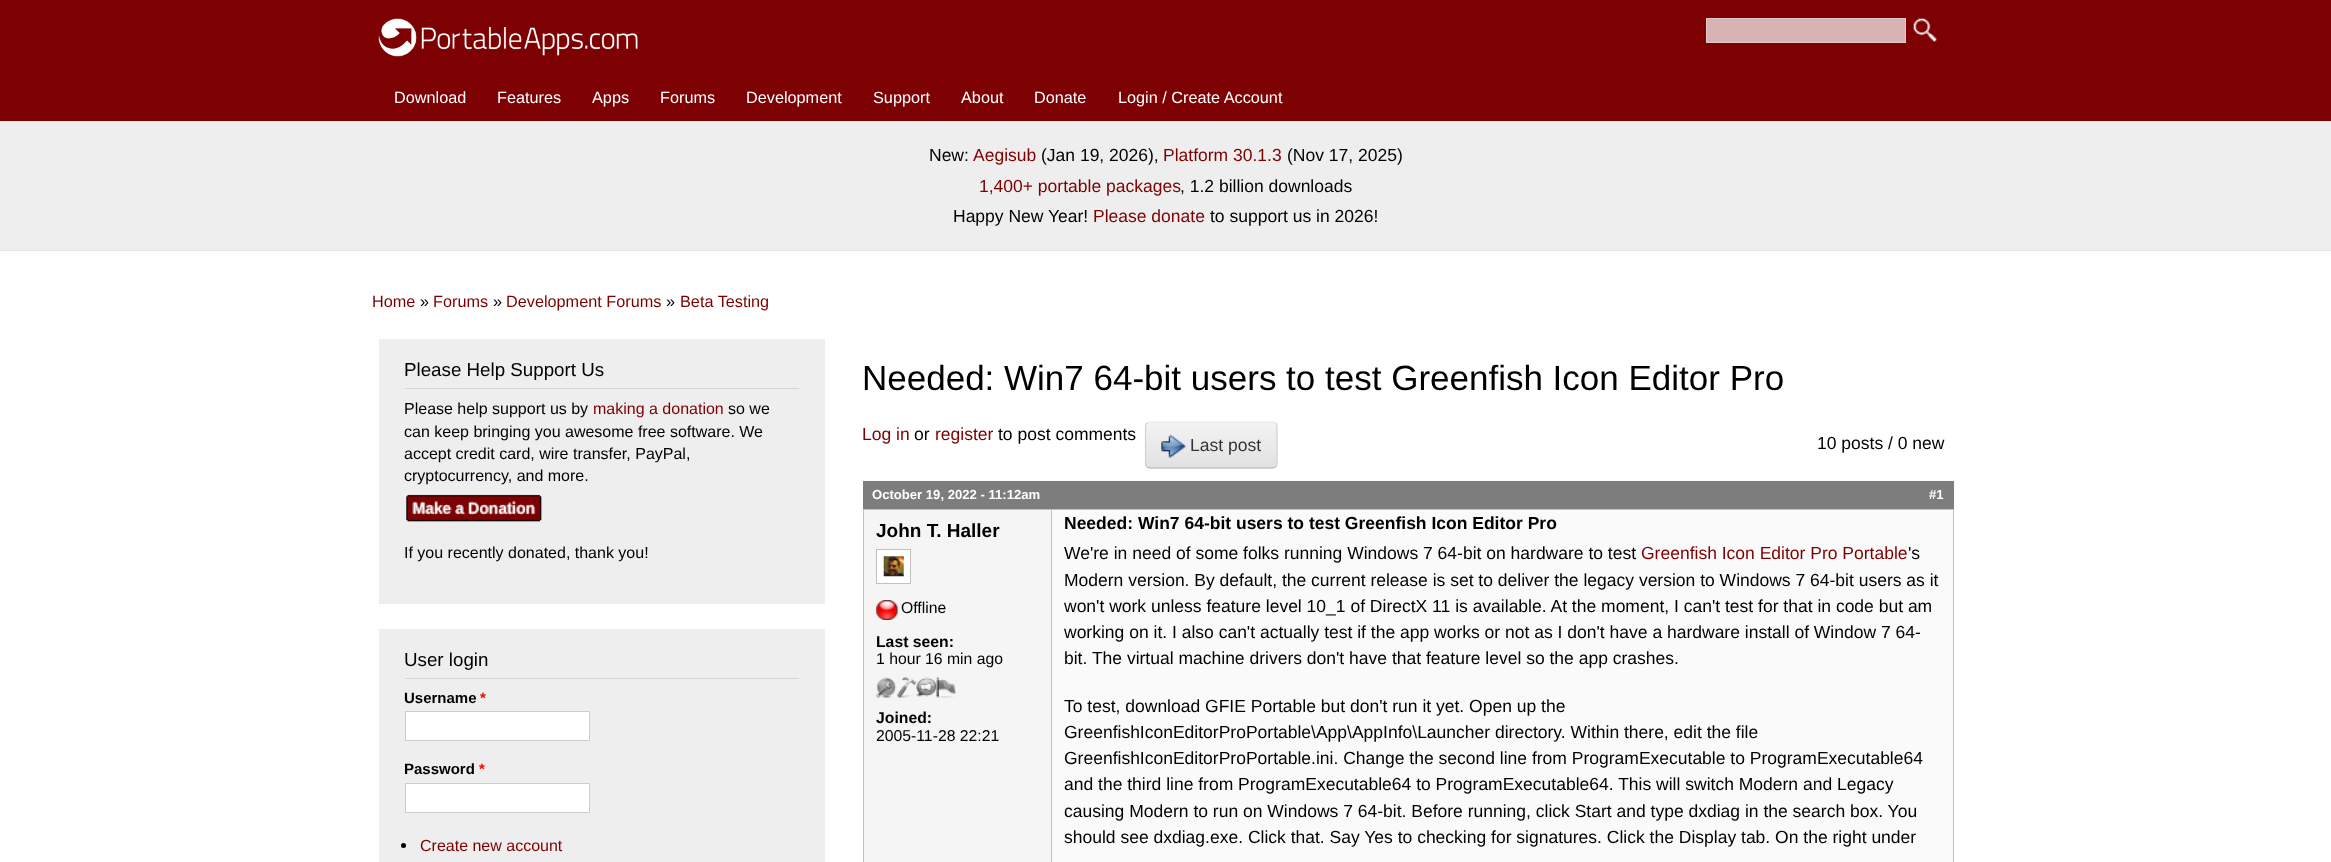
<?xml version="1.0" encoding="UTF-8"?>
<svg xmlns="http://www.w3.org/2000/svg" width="2331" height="862">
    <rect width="100%" height="100%" fill="#FFFFFF"/>
    <rect x="0" y="0" width="2331" height="121" fill="#7D0003"/>
    <image x="378" y="18" width="260" height="39" href="img_01.png"/>
    <rect x="1706.5" y="18.5" width="199" height="24" fill="#D8B3B3" stroke="#E4CACA"/>
    <image x="1913" y="18" width="24" height="24" href="img_02.png"/>
    <text x="394" y="103" font-family="Arimo" font-size="16.25" fill="#FFFFFF">Download</text>
    <text x="497" y="103" font-family="Arimo" font-size="16.25" fill="#FFFFFF">Features</text>
    <text x="592" y="103" font-family="Arimo" font-size="16.25" fill="#FFFFFF">Apps</text>
    <text x="660" y="103" font-family="Arimo" font-size="16.25" fill="#FFFFFF">Forums</text>
    <text x="746" y="103" font-family="Arimo" font-size="16.25" fill="#FFFFFF">Development</text>
    <text x="873" y="103" font-family="Arimo" font-size="16.25" fill="#FFFFFF">Support</text>
    <text x="961" y="103" font-family="Arimo" font-size="16.25" fill="#FFFFFF">About</text>
    <text x="1034" y="103" font-family="Arimo" font-size="16.25" fill="#FFFFFF">Donate</text>
    <text x="1118" y="103" font-family="Arimo" font-size="16.25" fill="#FFFFFF">Login / Create Account</text>
    <rect x="0" y="121" width="2331" height="129" fill="#EEEEEE"/>
    <rect x="0" y="250" width="2331" height="1" fill="#E7E7E7"/>
    <text x="929" y="161" font-family="Arimo" font-size="17.5" fill="#000000">New:</text>
    <text x="973" y="161" font-family="Arimo" font-size="17.5" fill="#7D0000">Aegisub</text>
    <text x="1041" y="161" font-family="Arimo" font-size="17.5" fill="#000000">(Jan 19, 2026),</text>
    <text x="1163" y="161" font-family="Arimo" font-size="17.5" fill="#7D0000">Platform 30.1.3</text>
    <text x="1287" y="161" font-family="Arimo" font-size="17.5" fill="#000000">(Nov 17, 2025)</text>
    <text x="979" y="192" font-family="Arimo" font-size="17.5" fill="#7D0000">1,400+ portable packages</text>
    <text x="1180" y="192" font-family="Arimo" font-size="17.5" fill="#000000">, 1.2 billion downloads</text>
    <text x="953" y="222" font-family="Arimo" font-size="17.5" fill="#000000">Happy New Year!</text>
    <text x="1093" y="222" font-family="Arimo" font-size="17.5" fill="#7D0000">Please donate</text>
    <text x="1210" y="222" font-family="Arimo" font-size="17.5" fill="#000000">to support us in 2026!</text>
    <text x="372" y="307" font-family="Arimo" font-size="16.25" fill="#7D0000">Home</text>
    <text x="420" y="307" font-family="Arimo" font-size="16.25" fill="#000000">»</text>
    <text x="433" y="307" font-family="Arimo" font-size="16.25" fill="#7D0000">Forums</text>
    <text x="493" y="307" font-family="Arimo" font-size="16.25" fill="#000000">»</text>
    <text x="506" y="307" font-family="Arimo" font-size="16.25" fill="#7D0000">Development Forums</text>
    <text x="666" y="307" font-family="Arimo" font-size="16.25" fill="#000000">»</text>
    <text x="680" y="307" font-family="Arimo" font-size="16.25" fill="#7D0000">Beta Testing</text>
    <rect x="379" y="339" width="446" height="265" fill="#EEEEEE"/>
    <rect x="405" y="388" width="394" height="1" fill="#D6D6D6"/>
    <text x="404" y="376" font-family="Arimo" font-size="18.75" fill="#000000">Please Help Support Us</text>
    <text x="404" y="414" font-family="Arimo" font-size="16" fill="#000000">Please help support us by</text>
    <text x="593" y="414" font-family="Arimo" font-size="16" fill="#7D0000">making a donation</text>
    <text x="728" y="414" font-family="Arimo" font-size="16" fill="#000000">so we</text>
    <text font-family="Arimo" font-size="16" fill="#000000">
        <tspan x="404" y="437">can keep bringing you awesome free software. We</tspan>
        <tspan x="404" y="459">accept credit card, wire transfer, PayPal,</tspan>
        <tspan x="404" y="481">cryptocurrency, and more.</tspan>
    </text>
    <image x="406" y="494" width="137" height="28" href="img_03.png"/>
    <text x="404" y="558" font-family="Arimo" font-size="16" fill="#000000">If you recently donated, thank you!</text>
    <rect x="379" y="629" width="446" height="233" fill="#EEEEEE"/>
    <rect x="405" y="678" width="394" height="1" fill="#D6D6D6"/>
    <text x="404" y="666" font-family="Arimo" font-size="18.75" fill="#000000">User login</text>
    <text x="404" y="703" font-family="Arimo" font-size="15" font-weight="700" fill="#000000">Username</text>
    <text x="480" y="703" font-family="Arimo" font-size="15" font-weight="700" fill="#FF0000">*</text>
    <rect x="405.5" y="711.5" width="184" height="29" fill="#FFFFFF" stroke="#CCCCCC"/>
    <text x="404" y="774" font-family="Arimo" font-size="15" font-weight="700" fill="#000000">Password</text>
    <text x="479" y="774" font-family="Arimo" font-size="15" font-weight="700" fill="#FF0000">*</text>
    <rect x="405.5" y="783.5" width="184" height="29" fill="#FFFFFF" stroke="#CCCCCC"/>
    <circle cx="403.5" cy="845.5" r="2.5" fill="#000000"/>
    <text x="420" y="851" font-family="Arimo" font-size="16" fill="#7D0000">Create new account</text>
    <text x="862" y="390" font-family="Arimo" font-size="35" fill="#000000">Needed: Win7 64-bit users to test Greenfish Icon Editor Pro</text>
    <text x="862" y="440" font-family="Arimo" font-size="17.5" fill="#7D0000">Log in</text>
    <text x="914" y="440" font-family="Arimo" font-size="17.5" fill="#000000">or</text>
    <text x="935" y="440" font-family="Arimo" font-size="17.5" fill="#7D0000">register</text>
    <text x="998" y="440" font-family="Arimo" font-size="17.5" fill="#000000">to post comments</text>
    <image x="1145" y="422" width="133" height="47" href="img_04.png"/>
    <path d="M 1147 423 L 1149.5 422 H 1252 H 1272.5 L 1275.5 423" fill="none" stroke="#E4E4E4" stroke-width="1.2"/>
    <path d="M 1275.5 423 C 1276.5 424 1277 425 1277 426 V 464 C 1277 465 1276.5 466 1275.5 467" fill="none" stroke="#D2D2D2" stroke-width="1.2"/>
    <path d="M 1275.5 467 L 1272.5 468 H 1149.5 L 1147 467" fill="none" stroke="#B4B4B4" stroke-width="1.2"/>
    <path d="M 1147 467 C 1146 466 1145.5 465 1145.5 464 V 426 C 1145.5 425 1146 424 1147 423" fill="none" stroke="#D2D2D2" stroke-width="1.2"/>
    <image x="1161" y="434" width="26" height="24" href="img_05.png"/>
    <text x="1190" y="451" font-family="Liberation Sans" font-size="17.5" fill="#333333">Last post</text>
    <text x="1817" y="449" font-family="Arimo" font-size="17.5" fill="#000000">10 posts / 0 new</text>
    <rect x="863" y="481" width="1091" height="28" fill="#7D7D7D"/>
    <rect x="863" y="480" width="1091" height="1" fill="#FAFAFA"/>
    <rect x="863" y="509" width="1091" height="1" fill="#C1C1C1"/>
    <text x="872" y="499" font-family="Arimo" font-size="13.1" font-weight="700" fill="#FFFFFF">October 19, 2022 - 11:12am</text>
    <text x="1929" y="499" font-family="Arimo" font-size="13.1" font-weight="700" fill="#FFFFFF">#1</text>
    <rect x="864" y="510" width="187" height="352" fill="#F5F5F5"/>
    <rect x="1953" y="510" width="1" height="352" fill="#C1C1C1"/>
    <rect x="863" y="510" width="1" height="352" fill="#C1C1C1"/>
    <text x="876" y="537" font-family="Arimo" font-size="19" font-weight="700" fill="#000000">John T. Haller</text>
    <rect x="876.5" y="549.5" width="34" height="34" fill="#FFFFFF" stroke="#C1C1C1"/>
    <image x="883" y="556" width="21" height="21" href="img_06.png"/>
    <image x="876" y="600" width="22" height="20" href="img_07.png"/>
    <text x="901" y="613" font-family="Arimo" font-size="15.75" fill="#000000">Offline</text>
    <text x="876" y="647" font-family="Arimo" font-size="15.75" font-weight="700" fill="#000000">Last seen:</text>
    <text x="876" y="664" font-family="Arimo" font-size="15.75" fill="#000000">1 hour 16 min ago</text>
    <image x="876" y="677" width="21" height="21" href="img_08.png"/>
    <image x="896" y="677" width="21" height="21" href="img_09.png"/>
    <image x="916" y="677" width="21" height="20" href="img_10.png"/>
    <image x="936" y="677" width="21" height="21" href="img_11.png"/>
    <text x="876" y="723" font-family="Arimo" font-size="15.75" font-weight="700" fill="#000000">Joined:</text>
    <text x="876" y="741" font-family="Arimo" font-size="15.75" fill="#000000">2005-11-28 22:21</text>
    <rect x="1052" y="510" width="901" height="352" fill="#FAFAFA"/>
    <rect x="1051" y="510" width="1" height="352" fill="#C1C1C1"/>
    <text x="1064" y="529" font-family="Arimo" font-size="17.5" font-weight="700" fill="#000000">Needed: Win7 64-bit users to test Greenfish Icon Editor Pro</text>
    <text x="1064" y="559" font-family="Arimo" font-size="17.5" fill="#000000">We're in need of some folks running Windows 7 64-bit on hardware to test</text>
    <text x="1641" y="559" font-family="Arimo" font-size="17.5" fill="#7D0000">Greenfish Icon Editor Pro Portable</text>
    <text x="1908" y="559" font-family="Arimo" font-size="17.5" fill="#000000">'s</text>
    <text font-family="Arimo" font-size="17.5" fill="#000000">
        <tspan x="1064" y="586">Modern version. By default, the current release is set to deliver the legacy version to Windows 7 64-bit users as it</tspan>
        <tspan x="1064" y="612">won't work unless feature level 10_1 of DirectX 11 is available. At the moment, I can't test for that in code but am</tspan>
        <tspan x="1064" y="638">working on it. I also can't actually test if the app works or not as I don't have a hardware install of Window 7 64-</tspan>
        <tspan x="1064" y="664">bit. The virtual machine drivers don't have that feature level so the app crashes.</tspan>
    </text>
    <text font-family="Arimo" font-size="17.5" fill="#000000">
        <tspan x="1064" y="712">To test, download GFIE Portable but don't run it yet. Open up the</tspan>
        <tspan x="1064" y="738">GreenfishIconEditorProPortable\App\AppInfo\Launcher directory. Within there, edit the file</tspan>
        <tspan x="1064" y="764">GreenfishIconEditorProPortable.ini. Change the second line from ProgramExecutable to ProgramExecutable64</tspan>
        <tspan x="1064" y="790">and the third line from ProgramExecutable64 to ProgramExecutable64. This will switch Modern and Legacy</tspan>
        <tspan x="1064" y="817">causing Modern to run on Windows 7 64-bit. Before running, click Start and type dxdiag in the search box. You</tspan>
        <tspan x="1064" y="843">should see dxdiag.exe. Click that. Say Yes to checking for signatures. Click the Display tab. On the right under</tspan>
    </text>
</svg>
